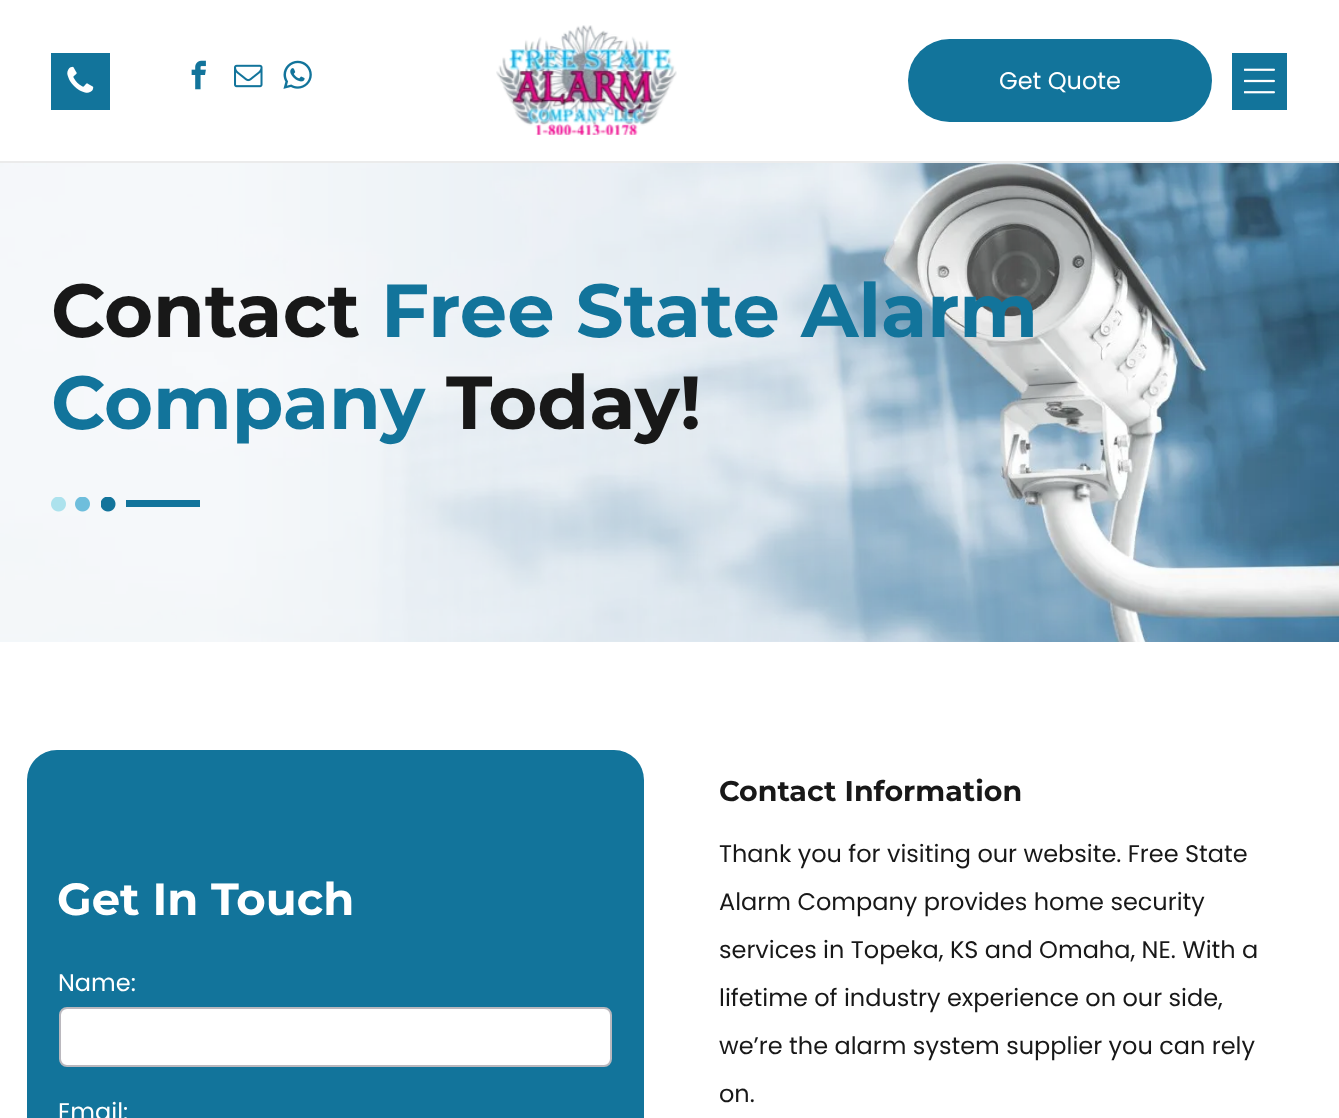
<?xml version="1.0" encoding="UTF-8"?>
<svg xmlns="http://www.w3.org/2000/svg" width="1339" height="1118">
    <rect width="100%" height="100%" fill="#FFFFFF"/>
    <rect x="0" y="161" width="1339" height="2" fill="#EBEBEB"/>
    <rect x="51" y="53" width="59" height="57" fill="#12749B"/>
    <image x="67" y="66" width="27" height="27" href="img_01.png"/>
    <image x="191" y="60" width="15" height="30" href="img_02.png"/>
    <image x="234" y="64" width="29" height="24" href="img_03.png"/>
    <image x="283" y="60" width="29" height="29" href="img_04.png"/>
    <image x="496" y="25" width="181" height="110" href="img_05.png"/>
    <rect x="908" y="39" width="304" height="83" rx="41.5" fill="#12749B"/>
    <text x="999" y="89" font-family="Poppins" font-size="24" fill="#FFFFFF">Get Quote</text>
    <rect x="1232" y="53" width="55" height="57" fill="#12749B"/>
    <image x="1244" y="68" width="31" height="26" href="img_06.png"/>
    <image x="0" y="163" width="1339" height="479" href="img_07.png"/>
    <text x="51" y="337" font-family="Montserrat" font-size="75" font-weight="700" fill="#181818">Contact</text>
    <text x="381" y="337" font-family="Montserrat" font-size="75" font-weight="700" fill="#12749B">Free State Alarm</text>
    <text x="51" y="429" font-family="Montserrat" font-size="75" font-weight="700" fill="#12749B">Company</text>
    <text x="446" y="429" font-family="Montserrat" font-size="75" font-weight="700" fill="#181818">Today!</text>
    <image x="51" y="497" width="15" height="15" href="img_08.png"/>
    <image x="75" y="497" width="15" height="15" href="img_09.png"/>
    <image x="101" y="497" width="15" height="15" href="img_10.png"/>
    <rect x="126" y="500" width="74" height="7" fill="#12749B"/>
    <rect x="27" y="750" width="617" height="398" rx="30" fill="#12749B"/>
    <text x="57" y="915" font-family="Montserrat" font-size="45" font-weight="700" fill="#FFFFFF">Get In Touch</text>
    <text x="58" y="991" font-family="Poppins" font-size="24" fill="#FFFFFF">Name:</text>
    <rect x="60" y="1008" width="551" height="58" rx="7" fill="#FFFFFF" stroke="#BAB8BE" stroke-width="2"/>
    <text x="58" y="1120" font-family="Poppins" font-size="24" fill="#FFFFFF">Email:</text>
    <text x="719" y="801" font-family="Montserrat" font-size="28.5" font-weight="700" fill="#181818">Contact Information</text>
    <text x="719" y="862" font-family="Poppins" font-size="24" fill="#181818">Thank you for visiting our website. Free State</text>
    <text x="719" y="910" font-family="Poppins" font-size="24" fill="#181818">Alarm Company provides home security</text>
    <text x="719" y="958" font-family="Poppins" font-size="24" fill="#181818">services in Topeka, KS and Omaha, NE. With a</text>
    <text x="719" y="1006" font-family="Poppins" font-size="24" fill="#181818">lifetime of industry experience on our side,</text>
    <text x="719" y="1054" font-family="Poppins" font-size="24" fill="#181818">we’re the alarm system supplier you can rely</text>
    <text x="719" y="1102" font-family="Poppins" font-size="24" fill="#181818">on.</text>
</svg>
